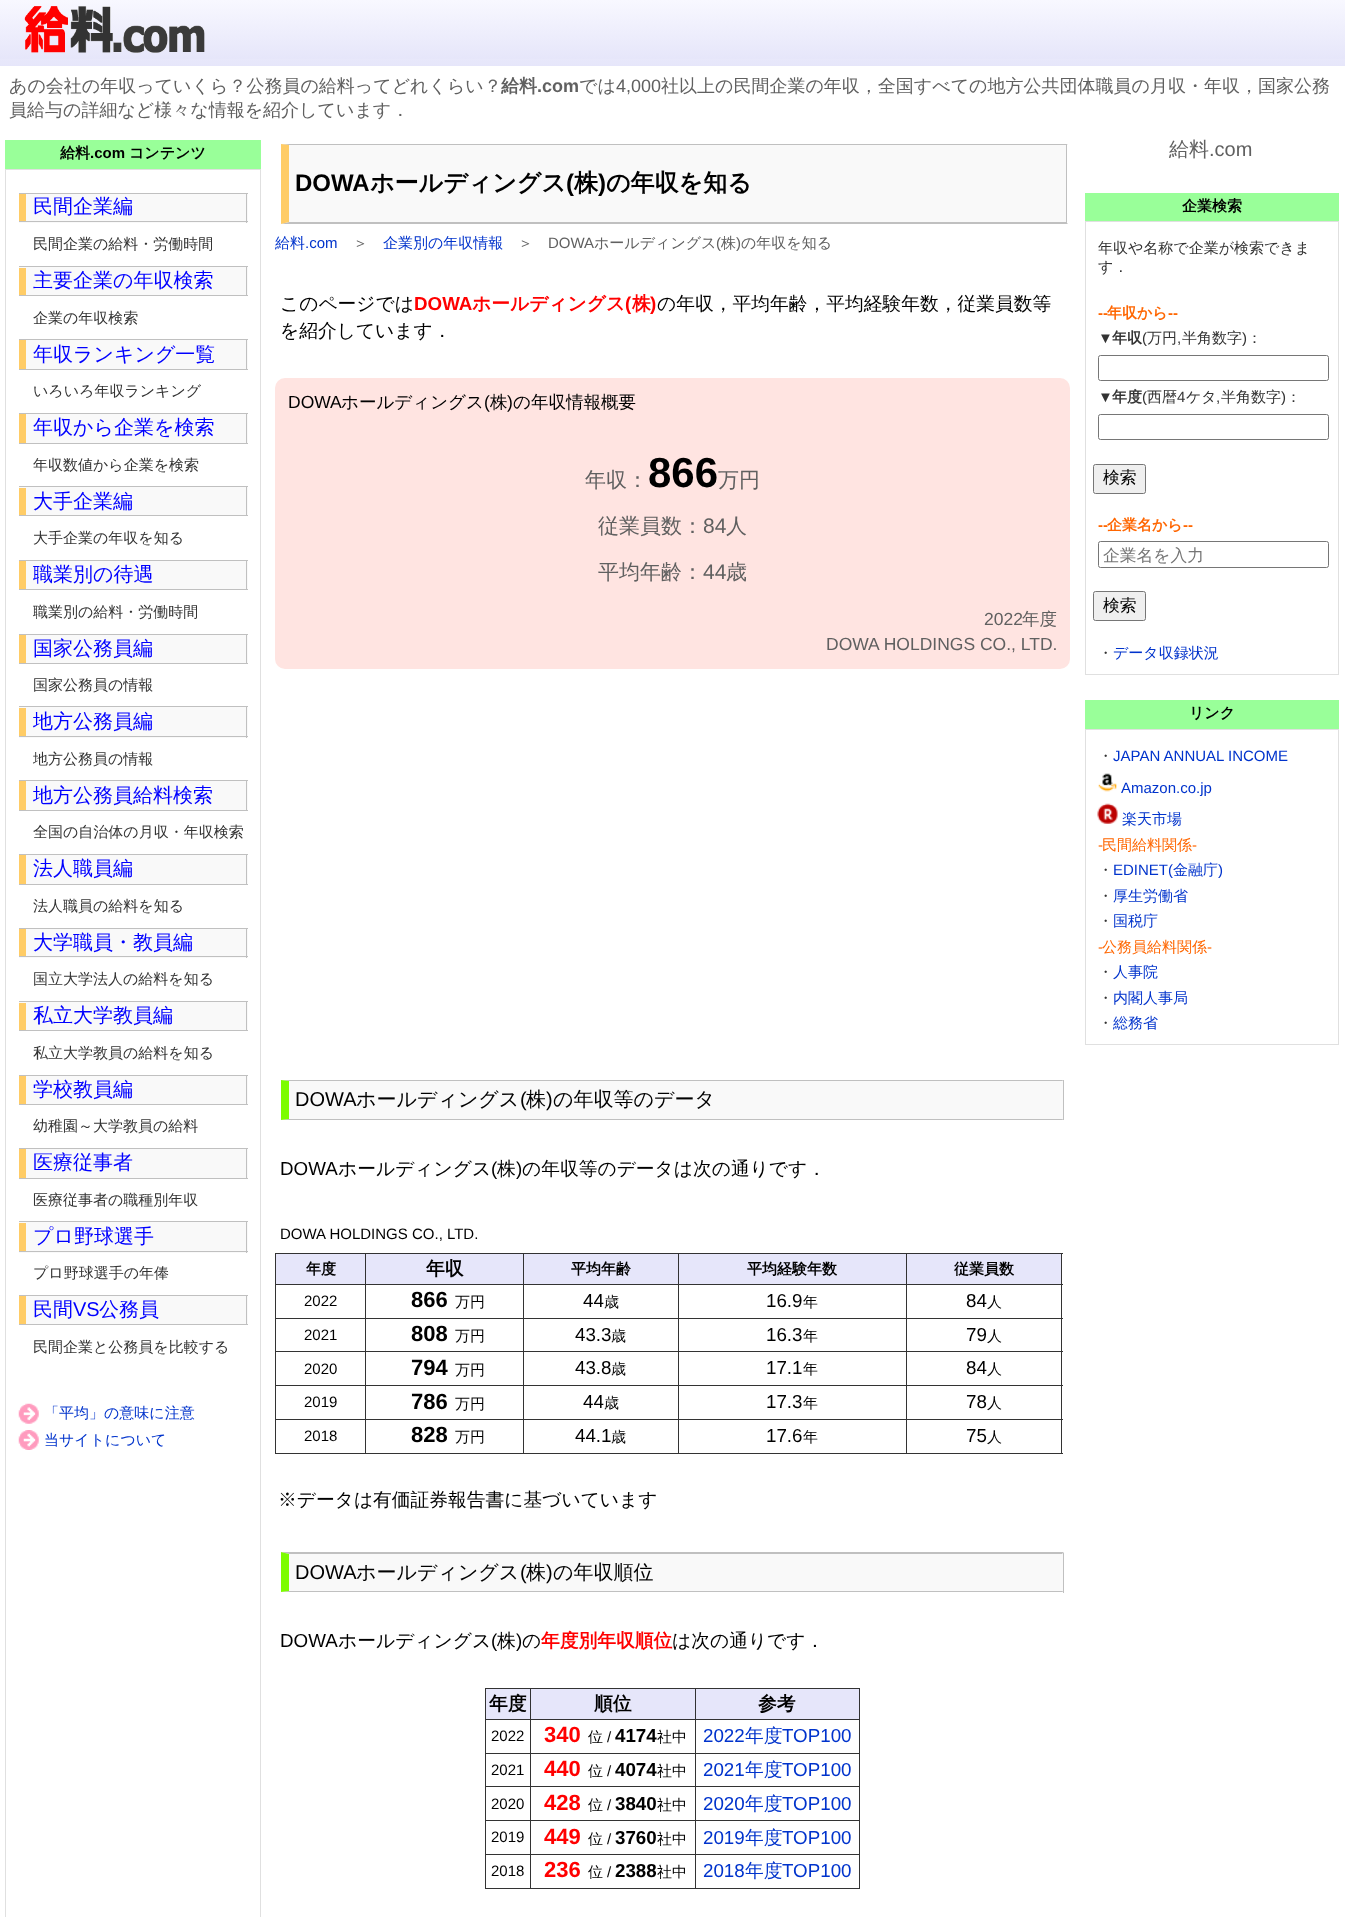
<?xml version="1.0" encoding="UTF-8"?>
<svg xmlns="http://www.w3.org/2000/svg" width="1345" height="1917">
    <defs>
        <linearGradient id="g1" gradientUnits="userSpaceOnUse" x1="673" y1="0" x2="673" y2="66"><stop offset="0" stop-color="#F8F8FF"/><stop offset="1" stop-color="#E6E6FA"/></linearGradient>
        <linearGradient id="g2" gradientUnits="userSpaceOnUse" x1="683" y1="0" x2="683" y2="59"><stop offset="0" stop-color="#F8F8FF"/><stop offset="1" stop-color="#E6E6FA"/></linearGradient>
    </defs>
    <rect width="100%" height="100%" fill="#FFFFFF"/>
    <rect x="0" y="59" width="1345" height="7" fill="url(#g1)"/>
    <rect x="0" y="0" width="1345" height="59" fill="url(#g2)"/>
    <image x="24" y="6" width="181" height="47" href="img_01.png"/>
    <text x="9" y="92" font-family="WenQuanYi Zen Hei" font-size="18" font-weight="500" fill="#606060">あの会社の年収っていくら？公務員の給料ってどれくらい？</text>
    <text x="501" y="92" font-family="WenQuanYi Zen Hei" font-size="18" font-weight="700" fill="#606060">給料</text>
    <text x="537" y="92" font-family="Liberation Sans" font-size="18" font-weight="700" fill="#606060">.com</text>
    <text x="579" y="92" font-family="WenQuanYi Zen Hei" font-size="18" font-weight="500" fill="#606060">では</text>
    <text x="616" y="92" font-family="Liberation Sans" font-size="18" fill="#606060">4,000</text>
    <text x="661" y="92" font-family="WenQuanYi Zen Hei" font-size="18" font-weight="500" fill="#606060">社以上の民間企業の年収，全国すべての地方公共団体職員の月収・年収，国家公務</text>
    <text x="9" y="116" font-family="WenQuanYi Zen Hei" font-size="18" font-weight="500" fill="#606060">員給与の詳細など様々な情報を紹介しています．</text>
    <rect x="5" y="140" width="256" height="29" fill="#99FF99"/>
    <text x="60" y="158" font-family="WenQuanYi Zen Hei" font-size="15" font-weight="700" fill="#000000">給料</text>
    <text x="90" y="158" font-family="Liberation Sans" font-size="15" font-weight="700" fill="#000000">.com</text>
    <text x="129" y="158" font-family="WenQuanYi Zen Hei" font-size="15" font-weight="700" fill="#000000">コンテンツ</text>
    <rect x="5.5" y="169.5" width="255" height="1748" fill="none" stroke="#E0E0E0"/>
    <rect x="19" y="194" width="229" height="29" fill="#F9F9F9"/>
    <rect x="19" y="193" width="229" height="1" fill="#C0C0C0"/>
    <rect x="246" y="193" width="1" height="30" fill="#C0C0C0"/>
    <rect x="19" y="221" width="229" height="1" fill="#C0C0C0"/>
    <rect x="19" y="194" width="7" height="27" fill="#FFCC66"/>
    <text x="33" y="213" font-family="WenQuanYi Zen Hei" font-size="20" font-weight="500" fill="#0000FF">民間企業編</text>
    <text x="33" y="249" font-family="WenQuanYi Zen Hei" font-size="15" font-weight="500" fill="#333333">民間企業の給料・労働時間</text>
    <rect x="19" y="267" width="229" height="28" fill="#F9F9F9"/>
    <rect x="19" y="266" width="229" height="1" fill="#C0C0C0"/>
    <rect x="246" y="266" width="1" height="30" fill="#C0C0C0"/>
    <rect x="19" y="295" width="229" height="1" fill="#C0C0C0"/>
    <rect x="19" y="268" width="7" height="27" fill="#FFCC66"/>
    <text x="33" y="287" font-family="WenQuanYi Zen Hei" font-size="20" font-weight="500" fill="#0000FF">主要企業の年収検索</text>
    <text x="33" y="323" font-family="WenQuanYi Zen Hei" font-size="15" font-weight="500" fill="#333333">企業の年収検索</text>
    <rect x="26" y="340" width="222" height="29" fill="#F9F9F9"/>
    <rect x="19" y="339" width="229" height="1" fill="#C0C0C0"/>
    <rect x="246" y="339" width="1" height="31" fill="#C0C0C0"/>
    <rect x="19" y="369" width="229" height="1" fill="#C0C0C0"/>
    <rect x="19" y="340" width="7" height="29" fill="#FFCC66"/>
    <text x="33" y="361" font-family="WenQuanYi Zen Hei" font-size="20" font-weight="500" fill="#0000FF">年収ランキング一覧</text>
    <text x="33" y="396" font-family="WenQuanYi Zen Hei" font-size="15" font-weight="500" fill="#333333">いろいろ年収ランキング</text>
    <rect x="26" y="414" width="222" height="29" fill="#F9F9F9"/>
    <rect x="19" y="413" width="229" height="1" fill="#C0C0C0"/>
    <rect x="246" y="413" width="1" height="31" fill="#C0C0C0"/>
    <rect x="19" y="443" width="229" height="1" fill="#C0C0C0"/>
    <rect x="19" y="414" width="7" height="29" fill="#FFCC66"/>
    <text x="33" y="434" font-family="WenQuanYi Zen Hei" font-size="20" font-weight="500" fill="#0000FF">年収から企業を検索</text>
    <text x="33" y="470" font-family="WenQuanYi Zen Hei" font-size="15" font-weight="500" fill="#333333">年収数値から企業を検索</text>
    <rect x="19" y="487" width="229" height="28" fill="#F9F9F9"/>
    <rect x="19" y="486" width="229" height="1" fill="#C0C0C0"/>
    <rect x="246" y="486" width="1" height="30" fill="#C0C0C0"/>
    <rect x="19" y="515" width="229" height="1" fill="#C0C0C0"/>
    <rect x="19" y="488" width="7" height="27" fill="#FFCC66"/>
    <text x="33" y="508" font-family="WenQuanYi Zen Hei" font-size="20" font-weight="500" fill="#0000FF">大手企業編</text>
    <text x="33" y="543" font-family="WenQuanYi Zen Hei" font-size="15" font-weight="500" fill="#333333">大手企業の年収を知る</text>
    <rect x="26" y="561" width="222" height="28" fill="#F9F9F9"/>
    <rect x="19" y="560" width="229" height="1" fill="#C0C0C0"/>
    <rect x="246" y="560" width="1" height="30" fill="#C0C0C0"/>
    <rect x="19" y="589" width="229" height="1" fill="#C0C0C0"/>
    <rect x="19" y="561" width="7" height="28" fill="#FFCC66"/>
    <text x="33" y="581" font-family="WenQuanYi Zen Hei" font-size="20" font-weight="500" fill="#0000FF">職業別の待遇</text>
    <text x="33" y="617" font-family="WenQuanYi Zen Hei" font-size="15" font-weight="500" fill="#333333">職業別の給料・労働時間</text>
    <rect x="26" y="635" width="222" height="28" fill="#F9F9F9"/>
    <rect x="19" y="634" width="229" height="1" fill="#C0C0C0"/>
    <rect x="246" y="634" width="1" height="30" fill="#C0C0C0"/>
    <rect x="19" y="663" width="229" height="1" fill="#C0C0C0"/>
    <rect x="19" y="635" width="7" height="28" fill="#FFCC66"/>
    <text x="33" y="655" font-family="WenQuanYi Zen Hei" font-size="20" font-weight="500" fill="#0000FF">国家公務員編</text>
    <text x="33" y="690" font-family="WenQuanYi Zen Hei" font-size="15" font-weight="500" fill="#333333">国家公務員の情報</text>
    <rect x="19" y="707" width="229" height="31" fill="#F9F9F9"/>
    <rect x="19" y="706" width="229" height="1" fill="#C0C0C0"/>
    <rect x="246" y="706" width="1" height="32" fill="#C0C0C0"/>
    <rect x="19" y="736" width="229" height="1" fill="#C0C0C0"/>
    <rect x="19" y="708" width="7" height="28" fill="#FFCC66"/>
    <text x="33" y="728" font-family="WenQuanYi Zen Hei" font-size="20" font-weight="500" fill="#0000FF">地方公務員編</text>
    <text x="33" y="764" font-family="WenQuanYi Zen Hei" font-size="15" font-weight="500" fill="#333333">地方公務員の情報</text>
    <rect x="26" y="781" width="222" height="29" fill="#F9F9F9"/>
    <rect x="19" y="780" width="229" height="1" fill="#C0C0C0"/>
    <rect x="246" y="780" width="1" height="31" fill="#C0C0C0"/>
    <rect x="19" y="810" width="229" height="1" fill="#C0C0C0"/>
    <rect x="19" y="781" width="7" height="29" fill="#FFCC66"/>
    <text x="33" y="802" font-family="WenQuanYi Zen Hei" font-size="20" font-weight="500" fill="#0000FF">地方公務員給料検索</text>
    <text x="33" y="837" font-family="WenQuanYi Zen Hei" font-size="15" font-weight="500" fill="#333333">全国の自治体の月収・年収検索</text>
    <rect x="26" y="855" width="222" height="29" fill="#F9F9F9"/>
    <rect x="19" y="854" width="229" height="1" fill="#C0C0C0"/>
    <rect x="246" y="854" width="1" height="31" fill="#C0C0C0"/>
    <rect x="19" y="884" width="229" height="1" fill="#C0C0C0"/>
    <rect x="19" y="855" width="7" height="29" fill="#FFCC66"/>
    <text x="33" y="875" font-family="WenQuanYi Zen Hei" font-size="20" font-weight="500" fill="#0000FF">法人職員編</text>
    <text x="33" y="911" font-family="WenQuanYi Zen Hei" font-size="15" font-weight="500" fill="#333333">法人職員の給料を知る</text>
    <rect x="19" y="929" width="229" height="29" fill="#F9F9F9"/>
    <rect x="19" y="928" width="229" height="1" fill="#C0C0C0"/>
    <rect x="246" y="928" width="1" height="30" fill="#C0C0C0"/>
    <rect x="19" y="956" width="229" height="1" fill="#C0C0C0"/>
    <rect x="19" y="929" width="7" height="27" fill="#FFCC66"/>
    <text x="33" y="949" font-family="WenQuanYi Zen Hei" font-size="20" font-weight="500" fill="#0000FF">大学職員・教員編</text>
    <text x="33" y="984" font-family="WenQuanYi Zen Hei" font-size="15" font-weight="500" fill="#333333">国立大学法人の給料を知る</text>
    <rect x="19" y="1002" width="229" height="28" fill="#F9F9F9"/>
    <rect x="19" y="1001" width="229" height="1" fill="#C0C0C0"/>
    <rect x="246" y="1001" width="1" height="30" fill="#C0C0C0"/>
    <rect x="19" y="1030" width="229" height="1" fill="#C0C0C0"/>
    <rect x="19" y="1003" width="7" height="27" fill="#FFCC66"/>
    <text x="33" y="1022" font-family="WenQuanYi Zen Hei" font-size="20" font-weight="500" fill="#0000FF">私立大学教員編</text>
    <text x="33" y="1058" font-family="WenQuanYi Zen Hei" font-size="15" font-weight="500" fill="#333333">私立大学教員の給料を知る</text>
    <rect x="26" y="1076" width="222" height="28" fill="#F9F9F9"/>
    <rect x="19" y="1075" width="229" height="1" fill="#C0C0C0"/>
    <rect x="246" y="1075" width="1" height="30" fill="#C0C0C0"/>
    <rect x="19" y="1104" width="229" height="1" fill="#C0C0C0"/>
    <rect x="19" y="1076" width="7" height="28" fill="#FFCC66"/>
    <text x="33" y="1096" font-family="WenQuanYi Zen Hei" font-size="20" font-weight="500" fill="#0000FF">学校教員編</text>
    <text x="33" y="1131" font-family="WenQuanYi Zen Hei" font-size="15" font-weight="500" fill="#333333">幼稚園～大学教員の給料</text>
    <rect x="26" y="1149" width="222" height="29" fill="#F9F9F9"/>
    <rect x="19" y="1148" width="229" height="1" fill="#C0C0C0"/>
    <rect x="246" y="1148" width="1" height="31" fill="#C0C0C0"/>
    <rect x="19" y="1178" width="229" height="1" fill="#C0C0C0"/>
    <rect x="19" y="1149" width="7" height="29" fill="#FFCC66"/>
    <text x="33" y="1169" font-family="WenQuanYi Zen Hei" font-size="20" font-weight="500" fill="#0000FF">医療従事者</text>
    <text x="33" y="1205" font-family="WenQuanYi Zen Hei" font-size="15" font-weight="500" fill="#333333">医療従事者の職種別年収</text>
    <rect x="19" y="1222" width="229" height="31" fill="#F9F9F9"/>
    <rect x="19" y="1221" width="229" height="1" fill="#C0C0C0"/>
    <rect x="246" y="1221" width="1" height="32" fill="#C0C0C0"/>
    <rect x="19" y="1251" width="229" height="1" fill="#C0C0C0"/>
    <rect x="19" y="1223" width="7" height="28" fill="#FFCC66"/>
    <text x="33" y="1243" font-family="WenQuanYi Zen Hei" font-size="20" font-weight="500" fill="#0000FF">プロ野球選手</text>
    <text x="33" y="1278" font-family="WenQuanYi Zen Hei" font-size="15" font-weight="500" fill="#333333">プロ野球選手の年俸</text>
    <rect x="26" y="1296" width="222" height="28" fill="#F9F9F9"/>
    <rect x="19" y="1295" width="229" height="1" fill="#C0C0C0"/>
    <rect x="246" y="1295" width="1" height="30" fill="#C0C0C0"/>
    <rect x="19" y="1324" width="229" height="1" fill="#C0C0C0"/>
    <rect x="19" y="1296" width="7" height="28" fill="#FFCC66"/>
    <text x="33" y="1316" font-family="WenQuanYi Zen Hei" font-size="20" font-weight="500" fill="#0000FF">民間</text>
    <text x="73" y="1316" font-family="Liberation Sans" font-size="20" fill="#0000FF">VS</text>
    <text x="99" y="1316" font-family="WenQuanYi Zen Hei" font-size="20" font-weight="500" fill="#0000FF">公務員</text>
    <text x="33" y="1352" font-family="WenQuanYi Zen Hei" font-size="15" font-weight="500" fill="#333333">民間企業と公務員を比較する</text>
    <image x="18" y="1403" width="21" height="21" href="img_02.png"/>
    <text x="44" y="1418" font-family="WenQuanYi Zen Hei" font-size="15" font-weight="500" fill="#0033CC">「平均」の意味に注意</text>
    <image x="18" y="1430" width="21" height="20" href="img_03.png"/>
    <text x="44" y="1445" font-family="WenQuanYi Zen Hei" font-size="15" font-weight="500" fill="#0033CC">当サイトについて</text>
    <rect x="289" y="145" width="777" height="77" fill="#F9F9F9"/>
    <path d="M 281 144 H 1068 L 1066 145 H 289 Z" fill="#C0C0C0"/>
    <rect x="1066" y="144" width="1" height="80" fill="#C0C0C0"/>
    <path d="M 1068 224 H 281 L 289 222 H 1066 Z" fill="#C0C0C0"/>
    <path d="M 281 224 V 144 L 289 145 V 222 Z" fill="#FFCC66"/>
    <text x="295" y="191" font-family="Liberation Sans" font-size="24" font-weight="700" fill="#000000">DOWA</text>
    <text x="370" y="191" font-family="WenQuanYi Zen Hei" font-size="24" font-weight="700" fill="#000000">ホールディングス</text>
    <text x="566" y="191" font-family="Liberation Sans" font-size="24" font-weight="700" fill="#000000">(</text>
    <text x="574" y="191" font-family="WenQuanYi Zen Hei" font-size="24" font-weight="700" fill="#000000">株</text>
    <text x="598" y="191" font-family="Liberation Sans" font-size="24" font-weight="700" fill="#000000">)</text>
    <text x="606" y="191" font-family="WenQuanYi Zen Hei" font-size="24" font-weight="700" fill="#000000">の年収を知る</text>
    <text x="275" y="248" font-family="WenQuanYi Zen Hei" font-size="15" font-weight="500" fill="#0033CC">給料</text>
    <text x="305" y="248" font-family="Liberation Sans" font-size="15" fill="#0033CC">.com</text>
    <text x="353" y="248" font-family="WenQuanYi Zen Hei" font-size="15" font-weight="500" fill="#606060">＞</text>
    <text x="383" y="248" font-family="WenQuanYi Zen Hei" font-size="15" font-weight="500" fill="#0033CC">企業別の年収情報</text>
    <text x="518" y="248" font-family="WenQuanYi Zen Hei" font-size="15" font-weight="500" fill="#606060">＞</text>
    <text x="548" y="248" font-family="Liberation Sans" font-size="15" fill="#606060">DOWA</text>
    <text x="594" y="248" font-family="WenQuanYi Zen Hei" font-size="15" font-weight="500" fill="#606060">ホールディングス</text>
    <text x="716" y="248" font-family="Liberation Sans" font-size="15" fill="#606060">(</text>
    <text x="721" y="248" font-family="WenQuanYi Zen Hei" font-size="15" font-weight="500" fill="#606060">株</text>
    <text x="736" y="248" font-family="Liberation Sans" font-size="15" fill="#606060">)</text>
    <text x="741" y="248" font-family="WenQuanYi Zen Hei" font-size="15" font-weight="500" fill="#606060">の年収を知る</text>
    <text x="280" y="310" font-family="WenQuanYi Zen Hei" font-size="18.75" font-weight="500" fill="#000000">このページでは</text>
    <text x="414" y="310" font-family="Liberation Sans" font-size="18.75" font-weight="700" fill="#FF0000">DOWA</text>
    <text x="472" y="310" font-family="WenQuanYi Zen Hei" font-size="18.75" font-weight="700" fill="#FF0000">ホールディングス</text>
    <text x="625" y="310" font-family="Liberation Sans" font-size="18.75" font-weight="700" fill="#FF0000">(</text>
    <text x="632" y="310" font-family="WenQuanYi Zen Hei" font-size="18.75" font-weight="700" fill="#FF0000">株</text>
    <text x="650" y="310" font-family="Liberation Sans" font-size="18.75" font-weight="700" fill="#FF0000">)</text>
    <text x="657" y="310" font-family="WenQuanYi Zen Hei" font-size="18.75" font-weight="500" fill="#000000">の年収，平均年齢，平均経験年数，従業員数等</text>
    <text x="280" y="337" font-family="WenQuanYi Zen Hei" font-size="18.75" font-weight="500" fill="#000000">を紹介しています．</text>
    <rect x="275" y="378" width="795" height="291" rx="10" fill="#FFE4E1"/>
    <text x="288" y="408" font-family="Liberation Sans" font-size="17.5" fill="#000000">DOWA</text>
    <text x="341" y="408" font-family="WenQuanYi Zen Hei" font-size="17.5" font-weight="500" fill="#000000">ホールディングス</text>
    <text x="484" y="408" font-family="Liberation Sans" font-size="17.5" fill="#000000">(</text>
    <text x="490" y="408" font-family="WenQuanYi Zen Hei" font-size="17.5" font-weight="500" fill="#000000">株</text>
    <text x="507" y="408" font-family="Liberation Sans" font-size="17.5" fill="#000000">)</text>
    <text x="513" y="408" font-family="WenQuanYi Zen Hei" font-size="17.5" font-weight="500" fill="#000000">の年収情報概要</text>
    <text x="585" y="487" font-family="WenQuanYi Zen Hei" font-size="21" font-weight="500" fill="#606060">年収：</text>
    <text x="648" y="487" font-family="Liberation Sans" font-size="42" font-weight="700" fill="#000000">866</text>
    <text x="718" y="487" font-family="WenQuanYi Zen Hei" font-size="21" font-weight="500" fill="#606060">万円</text>
    <text x="598" y="533" font-family="WenQuanYi Zen Hei" font-size="21" font-weight="500" fill="#606060">従業員数：</text>
    <text x="703" y="533" font-family="Liberation Sans" font-size="21" fill="#606060">84</text>
    <text x="726" y="533" font-family="WenQuanYi Zen Hei" font-size="21" font-weight="500" fill="#606060">人</text>
    <text x="598" y="579" font-family="WenQuanYi Zen Hei" font-size="21" font-weight="500" fill="#606060">平均年齢：</text>
    <text x="703" y="579" font-family="Liberation Sans" font-size="21" fill="#606060">44</text>
    <text x="726" y="579" font-family="WenQuanYi Zen Hei" font-size="21" font-weight="500" fill="#606060">歳</text>
    <text x="984" y="625" font-family="Liberation Sans" font-size="17.5" fill="#606060">2022</text>
    <text x="1022" y="625" font-family="WenQuanYi Zen Hei" font-size="17.5" font-weight="500" fill="#606060">年度</text>
    <text x="826" y="650" font-family="Liberation Sans" font-size="17.5" fill="#606060">DOWA HOLDINGS CO., LTD.</text>
    <rect x="289" y="1081" width="774" height="38" fill="#F9F9F9"/>
    <path d="M 281 1080 H 1064 L 1062 1081 H 289 Z" fill="#C0C0C0"/>
    <rect x="1063" y="1080" width="1" height="40" fill="#C0C0C0"/>
    <path d="M 1064 1120 H 281 L 289 1119 H 1062 Z" fill="#C0C0C0"/>
    <path d="M 281 1120 V 1080 L 289 1081 V 1119 Z" fill="#7CFC00"/>
    <text x="295" y="1106" font-family="Liberation Sans" font-size="20" fill="#000000">DOWA</text>
    <text x="356" y="1106" font-family="WenQuanYi Zen Hei" font-size="20" font-weight="500" fill="#000000">ホールディングス</text>
    <text x="520" y="1106" font-family="Liberation Sans" font-size="20" fill="#000000">(</text>
    <text x="526" y="1106" font-family="WenQuanYi Zen Hei" font-size="20" font-weight="500" fill="#000000">株</text>
    <text x="546" y="1106" font-family="Liberation Sans" font-size="20" fill="#000000">)</text>
    <text x="553" y="1106" font-family="WenQuanYi Zen Hei" font-size="20" font-weight="500" fill="#000000">の年収等のデータ</text>
    <text x="280" y="1175" font-family="Liberation Sans" font-size="18.75" fill="#000000">DOWA</text>
    <text x="338" y="1175" font-family="WenQuanYi Zen Hei" font-size="18.75" font-weight="500" fill="#000000">ホールディングス</text>
    <text x="491" y="1175" font-family="Liberation Sans" font-size="18.75" fill="#000000">(</text>
    <text x="497" y="1175" font-family="WenQuanYi Zen Hei" font-size="18.75" font-weight="500" fill="#000000">株</text>
    <text x="516" y="1175" font-family="Liberation Sans" font-size="18.75" fill="#000000">)</text>
    <text x="522" y="1175" font-family="WenQuanYi Zen Hei" font-size="18.75" font-weight="500" fill="#000000">の年収等のデータは次の通りです．</text>
    <text x="280" y="1239" font-family="Liberation Sans" font-size="15" fill="#000000">DOWA HOLDINGS CO., LTD.</text>
    <rect x="275" y="1253" width="788" height="1" fill="#333333"/>
    <rect x="1061" y="1253" width="1" height="201" fill="#333333"/>
    <rect x="275" y="1453" width="788" height="1" fill="#333333"/>
    <rect x="275" y="1253" width="1" height="201" fill="#333333"/>
    <rect x="276" y="1254" width="785" height="30" fill="#E6E6FA"/>
    <text x="306" y="1274" font-family="WenQuanYi Zen Hei" font-size="15" font-weight="700" fill="#000000">年度</text>
    <rect x="906" y="1284" width="157" height="1" fill="#333333"/>
    <rect x="906" y="1318" width="157" height="1" fill="#333333"/>
    <rect x="906" y="1351" width="157" height="1" fill="#333333"/>
    <rect x="906" y="1385" width="157" height="1" fill="#333333"/>
    <rect x="906" y="1419" width="157" height="1" fill="#333333"/>
    <rect x="906" y="1419" width="1" height="35" fill="#333333"/>
    <rect x="678" y="1419" width="230" height="1" fill="#333333"/>
    <rect x="906" y="1385" width="1" height="35" fill="#333333"/>
    <rect x="678" y="1385" width="230" height="1" fill="#333333"/>
    <rect x="906" y="1351" width="1" height="35" fill="#333333"/>
    <rect x="678" y="1351" width="230" height="1" fill="#333333"/>
    <rect x="906" y="1318" width="1" height="35" fill="#333333"/>
    <rect x="678" y="1318" width="230" height="1" fill="#333333"/>
    <rect x="906" y="1284" width="1" height="35" fill="#333333"/>
    <rect x="678" y="1284" width="230" height="1" fill="#333333"/>
    <rect x="678" y="1419" width="1" height="35" fill="#333333"/>
    <rect x="523" y="1419" width="156" height="1" fill="#333333"/>
    <rect x="678" y="1385" width="1" height="35" fill="#333333"/>
    <rect x="523" y="1385" width="156" height="1" fill="#333333"/>
    <rect x="678" y="1351" width="1" height="35" fill="#333333"/>
    <rect x="523" y="1351" width="156" height="1" fill="#333333"/>
    <rect x="678" y="1318" width="1" height="35" fill="#333333"/>
    <rect x="523" y="1318" width="156" height="1" fill="#333333"/>
    <rect x="678" y="1284" width="1" height="35" fill="#333333"/>
    <rect x="523" y="1284" width="156" height="1" fill="#333333"/>
    <rect x="523" y="1419" width="1" height="35" fill="#333333"/>
    <rect x="365" y="1419" width="159" height="1" fill="#333333"/>
    <rect x="523" y="1385" width="1" height="35" fill="#333333"/>
    <rect x="365" y="1385" width="159" height="1" fill="#333333"/>
    <rect x="523" y="1351" width="1" height="35" fill="#333333"/>
    <rect x="365" y="1351" width="159" height="1" fill="#333333"/>
    <rect x="523" y="1318" width="1" height="35" fill="#333333"/>
    <rect x="365" y="1318" width="159" height="1" fill="#333333"/>
    <rect x="523" y="1284" width="1" height="35" fill="#333333"/>
    <rect x="365" y="1284" width="159" height="1" fill="#333333"/>
    <rect x="365" y="1419" width="1" height="35" fill="#333333"/>
    <rect x="275" y="1419" width="91" height="1" fill="#333333"/>
    <rect x="365" y="1385" width="1" height="35" fill="#333333"/>
    <rect x="275" y="1385" width="91" height="1" fill="#333333"/>
    <rect x="365" y="1351" width="1" height="35" fill="#333333"/>
    <rect x="275" y="1351" width="91" height="1" fill="#333333"/>
    <rect x="365" y="1318" width="1" height="35" fill="#333333"/>
    <rect x="275" y="1318" width="91" height="1" fill="#333333"/>
    <rect x="365" y="1284" width="1" height="35" fill="#333333"/>
    <rect x="275" y="1284" width="91" height="1" fill="#333333"/>
    <rect x="365" y="1253" width="1" height="32" fill="#333333"/>
    <text x="426" y="1275" font-family="WenQuanYi Zen Hei" font-size="18.75" font-weight="700" fill="#000000">年収</text>
    <rect x="523" y="1253" width="1" height="32" fill="#333333"/>
    <text x="571" y="1274" font-family="WenQuanYi Zen Hei" font-size="15" font-weight="700" fill="#000000">平均年齢</text>
    <rect x="678" y="1253" width="1" height="32" fill="#333333"/>
    <text x="747" y="1274" font-family="WenQuanYi Zen Hei" font-size="15" font-weight="700" fill="#000000">平均経験年数</text>
    <rect x="906" y="1253" width="1" height="32" fill="#333333"/>
    <text x="954" y="1274" font-family="WenQuanYi Zen Hei" font-size="15" font-weight="700" fill="#000000">従業員数</text>
    <text x="304" y="1306" font-family="Liberation Sans" font-size="15" fill="#000000">2022</text>
    <text x="411" y="1307" font-family="Liberation Sans" font-size="22" font-weight="700" fill="#000000">866</text>
    <text x="455" y="1307" font-family="WenQuanYi Zen Hei" font-size="15" font-weight="500" fill="#000000">万円</text>
    <text x="583" y="1307" font-family="Liberation Sans" font-size="18.75" fill="#000000">44</text>
    <text x="604" y="1307" font-family="WenQuanYi Zen Hei" font-size="15" font-weight="500" fill="#000000">歳</text>
    <text x="766" y="1307" font-family="Liberation Sans" font-size="18.75" fill="#000000">16.9</text>
    <text x="803" y="1307" font-family="WenQuanYi Zen Hei" font-size="15" font-weight="500" fill="#000000">年</text>
    <text x="966" y="1307" font-family="Liberation Sans" font-size="18.75" fill="#000000">84</text>
    <text x="987" y="1307" font-family="WenQuanYi Zen Hei" font-size="15" font-weight="500" fill="#000000">人</text>
    <text x="304" y="1340" font-family="Liberation Sans" font-size="15" fill="#000000">2021</text>
    <text x="411" y="1341" font-family="Liberation Sans" font-size="22" font-weight="700" fill="#000000">808</text>
    <text x="455" y="1341" font-family="WenQuanYi Zen Hei" font-size="15" font-weight="500" fill="#000000">万円</text>
    <text x="575" y="1341" font-family="Liberation Sans" font-size="18.75" fill="#000000">43.3</text>
    <text x="611" y="1341" font-family="WenQuanYi Zen Hei" font-size="15" font-weight="500" fill="#000000">歳</text>
    <text x="766" y="1341" font-family="Liberation Sans" font-size="18.75" fill="#000000">16.3</text>
    <text x="803" y="1341" font-family="WenQuanYi Zen Hei" font-size="15" font-weight="500" fill="#000000">年</text>
    <text x="966" y="1341" font-family="Liberation Sans" font-size="18.75" fill="#000000">79</text>
    <text x="987" y="1341" font-family="WenQuanYi Zen Hei" font-size="15" font-weight="500" fill="#000000">人</text>
    <text x="304" y="1374" font-family="Liberation Sans" font-size="15" fill="#000000">2020</text>
    <text x="411" y="1375" font-family="Liberation Sans" font-size="22" font-weight="700" fill="#000000">794</text>
    <text x="455" y="1375" font-family="WenQuanYi Zen Hei" font-size="15" font-weight="500" fill="#000000">万円</text>
    <text x="575" y="1374" font-family="Liberation Sans" font-size="18.75" fill="#000000">43.8</text>
    <text x="611" y="1374" font-family="WenQuanYi Zen Hei" font-size="15" font-weight="500" fill="#000000">歳</text>
    <text x="766" y="1374" font-family="Liberation Sans" font-size="18.75" fill="#000000">17.1</text>
    <text x="803" y="1374" font-family="WenQuanYi Zen Hei" font-size="15" font-weight="500" fill="#000000">年</text>
    <text x="966" y="1374" font-family="Liberation Sans" font-size="18.75" fill="#000000">84</text>
    <text x="987" y="1374" font-family="WenQuanYi Zen Hei" font-size="15" font-weight="500" fill="#000000">人</text>
    <text x="304" y="1407" font-family="Liberation Sans" font-size="15" fill="#000000">2019</text>
    <text x="411" y="1409" font-family="Liberation Sans" font-size="22" font-weight="700" fill="#000000">786</text>
    <text x="455" y="1409" font-family="WenQuanYi Zen Hei" font-size="15" font-weight="500" fill="#000000">万円</text>
    <text x="583" y="1408" font-family="Liberation Sans" font-size="18.75" fill="#000000">44</text>
    <text x="604" y="1408" font-family="WenQuanYi Zen Hei" font-size="15" font-weight="500" fill="#000000">歳</text>
    <text x="766" y="1408" font-family="Liberation Sans" font-size="18.75" fill="#000000">17.3</text>
    <text x="803" y="1408" font-family="WenQuanYi Zen Hei" font-size="15" font-weight="500" fill="#000000">年</text>
    <text x="966" y="1408" font-family="Liberation Sans" font-size="18.75" fill="#000000">78</text>
    <text x="987" y="1408" font-family="WenQuanYi Zen Hei" font-size="15" font-weight="500" fill="#000000">人</text>
    <text x="304" y="1441" font-family="Liberation Sans" font-size="15" fill="#000000">2018</text>
    <text x="411" y="1442" font-family="Liberation Sans" font-size="22" font-weight="700" fill="#000000">828</text>
    <text x="455" y="1442" font-family="WenQuanYi Zen Hei" font-size="15" font-weight="500" fill="#000000">万円</text>
    <text x="575" y="1442" font-family="Liberation Sans" font-size="18.75" fill="#000000">44.1</text>
    <text x="611" y="1442" font-family="WenQuanYi Zen Hei" font-size="15" font-weight="500" fill="#000000">歳</text>
    <text x="766" y="1442" font-family="Liberation Sans" font-size="18.75" fill="#000000">17.6</text>
    <text x="803" y="1442" font-family="WenQuanYi Zen Hei" font-size="15" font-weight="500" fill="#000000">年</text>
    <text x="966" y="1442" font-family="Liberation Sans" font-size="18.75" fill="#000000">75</text>
    <text x="987" y="1442" font-family="WenQuanYi Zen Hei" font-size="15" font-weight="500" fill="#000000">人</text>
    <text x="278" y="1506" font-family="WenQuanYi Zen Hei" font-size="18.75" font-weight="500" fill="#000000">※データは有価証券報告書に基づいています</text>
    <rect x="289" y="1554" width="774" height="37" fill="#F9F9F9"/>
    <path d="M 281 1552 H 1064 L 1062 1554 H 289 Z" fill="#C0C0C0"/>
    <rect x="1063" y="1553" width="1" height="40" fill="#C0C0C0"/>
    <path d="M 1064 1592 H 281 L 289 1591 H 1062 Z" fill="#C0C0C0"/>
    <path d="M 281 1592 V 1552 L 289 1554 V 1591 Z" fill="#7CFC00"/>
    <text x="295" y="1579" font-family="Liberation Sans" font-size="20" fill="#000000">DOWA</text>
    <text x="356" y="1579" font-family="WenQuanYi Zen Hei" font-size="20" font-weight="500" fill="#000000">ホールディングス</text>
    <text x="520" y="1579" font-family="Liberation Sans" font-size="20" fill="#000000">(</text>
    <text x="526" y="1579" font-family="WenQuanYi Zen Hei" font-size="20" font-weight="500" fill="#000000">株</text>
    <text x="546" y="1579" font-family="Liberation Sans" font-size="20" fill="#000000">)</text>
    <text x="553" y="1579" font-family="WenQuanYi Zen Hei" font-size="20" font-weight="500" fill="#000000">の年収順位</text>
    <text x="280" y="1647" font-family="Liberation Sans" font-size="18.75" fill="#000000">DOWA</text>
    <text x="338" y="1647" font-family="WenQuanYi Zen Hei" font-size="18.75" font-weight="500" fill="#000000">ホールディングス</text>
    <text x="491" y="1647" font-family="Liberation Sans" font-size="18.75" fill="#000000">(</text>
    <text x="497" y="1647" font-family="WenQuanYi Zen Hei" font-size="18.75" font-weight="500" fill="#000000">株</text>
    <text x="516" y="1647" font-family="Liberation Sans" font-size="18.75" fill="#000000">)</text>
    <text x="522" y="1647" font-family="WenQuanYi Zen Hei" font-size="18.75" font-weight="500" fill="#000000">の</text>
    <text x="541" y="1647" font-family="WenQuanYi Zen Hei" font-size="18.75" font-weight="700" fill="#FF0000">年度別年収順位</text>
    <text x="672" y="1647" font-family="WenQuanYi Zen Hei" font-size="18.75" font-weight="500" fill="#000000">は次の通りです．</text>
    <rect x="485" y="1688" width="375" height="1" fill="#333333"/>
    <rect x="859" y="1688" width="1" height="201" fill="#333333"/>
    <rect x="485" y="1888" width="375" height="1" fill="#333333"/>
    <rect x="485" y="1688" width="1" height="201" fill="#333333"/>
    <rect x="486" y="1689" width="373" height="30" fill="#E6E6FA"/>
    <text x="489" y="1710" font-family="WenQuanYi Zen Hei" font-size="18.75" font-weight="700" fill="#000000">年度</text>
    <rect x="695" y="1719" width="165" height="1" fill="#333333"/>
    <rect x="695" y="1753" width="165" height="1" fill="#333333"/>
    <rect x="695" y="1786" width="165" height="1" fill="#333333"/>
    <rect x="695" y="1820" width="165" height="1" fill="#333333"/>
    <rect x="695" y="1854" width="165" height="1" fill="#333333"/>
    <rect x="695" y="1854" width="1" height="35" fill="#333333"/>
    <rect x="530" y="1854" width="166" height="1" fill="#333333"/>
    <rect x="695" y="1820" width="1" height="35" fill="#333333"/>
    <rect x="530" y="1820" width="166" height="1" fill="#333333"/>
    <rect x="695" y="1786" width="1" height="35" fill="#333333"/>
    <rect x="530" y="1786" width="166" height="1" fill="#333333"/>
    <rect x="695" y="1753" width="1" height="35" fill="#333333"/>
    <rect x="530" y="1753" width="166" height="1" fill="#333333"/>
    <rect x="695" y="1719" width="1" height="35" fill="#333333"/>
    <rect x="530" y="1719" width="166" height="1" fill="#333333"/>
    <rect x="530" y="1854" width="1" height="35" fill="#333333"/>
    <rect x="485" y="1854" width="46" height="1" fill="#333333"/>
    <rect x="530" y="1820" width="1" height="35" fill="#333333"/>
    <rect x="485" y="1820" width="46" height="1" fill="#333333"/>
    <rect x="530" y="1786" width="1" height="35" fill="#333333"/>
    <rect x="485" y="1786" width="46" height="1" fill="#333333"/>
    <rect x="530" y="1753" width="1" height="35" fill="#333333"/>
    <rect x="485" y="1753" width="46" height="1" fill="#333333"/>
    <rect x="530" y="1719" width="1" height="35" fill="#333333"/>
    <rect x="485" y="1719" width="46" height="1" fill="#333333"/>
    <rect x="530" y="1688" width="1" height="32" fill="#333333"/>
    <text x="594" y="1710" font-family="WenQuanYi Zen Hei" font-size="18.75" font-weight="700" fill="#000000">順位</text>
    <rect x="695" y="1688" width="1" height="32" fill="#333333"/>
    <text x="758" y="1710" font-family="WenQuanYi Zen Hei" font-size="18.75" font-weight="700" fill="#000000">参考</text>
    <text x="491" y="1741" font-family="Liberation Sans" font-size="15" fill="#000000">2022</text>
    <text x="544" y="1742" font-family="Liberation Sans" font-size="22" font-weight="700" fill="#FF0000">340</text>
    <text x="588" y="1742" font-family="WenQuanYi Zen Hei" font-size="15" font-weight="500" fill="#000000">位</text>
    <text x="607" y="1742" font-family="Liberation Sans" font-size="15" fill="#000000">/</text>
    <text x="615" y="1742" font-family="Liberation Sans" font-size="18.75" font-weight="700" fill="#000000">4174</text>
    <text x="657" y="1742" font-family="WenQuanYi Zen Hei" font-size="15" font-weight="500" fill="#000000">社中</text>
    <text x="703" y="1742" font-family="Liberation Sans" font-size="18.75" fill="#0033CC">2022</text>
    <text x="745" y="1742" font-family="WenQuanYi Zen Hei" font-size="18.75" font-weight="500" fill="#0033CC">年度</text>
    <text x="782" y="1742" font-family="Liberation Sans" font-size="18.75" fill="#0033CC">TOP100</text>
    <text x="491" y="1775" font-family="Liberation Sans" font-size="15" fill="#000000">2021</text>
    <text x="544" y="1776" font-family="Liberation Sans" font-size="22" font-weight="700" fill="#FF0000">440</text>
    <text x="588" y="1776" font-family="WenQuanYi Zen Hei" font-size="15" font-weight="500" fill="#000000">位</text>
    <text x="607" y="1776" font-family="Liberation Sans" font-size="15" fill="#000000">/</text>
    <text x="615" y="1776" font-family="Liberation Sans" font-size="18.75" font-weight="700" fill="#000000">4074</text>
    <text x="657" y="1776" font-family="WenQuanYi Zen Hei" font-size="15" font-weight="500" fill="#000000">社中</text>
    <text x="703" y="1776" font-family="Liberation Sans" font-size="18.75" fill="#0033CC">2021</text>
    <text x="745" y="1776" font-family="WenQuanYi Zen Hei" font-size="18.75" font-weight="500" fill="#0033CC">年度</text>
    <text x="782" y="1776" font-family="Liberation Sans" font-size="18.75" fill="#0033CC">TOP100</text>
    <text x="491" y="1809" font-family="Liberation Sans" font-size="15" fill="#000000">2020</text>
    <text x="544" y="1810" font-family="Liberation Sans" font-size="22" font-weight="700" fill="#FF0000">428</text>
    <text x="588" y="1810" font-family="WenQuanYi Zen Hei" font-size="15" font-weight="500" fill="#000000">位</text>
    <text x="607" y="1810" font-family="Liberation Sans" font-size="15" fill="#000000">/</text>
    <text x="615" y="1810" font-family="Liberation Sans" font-size="18.75" font-weight="700" fill="#000000">3840</text>
    <text x="657" y="1810" font-family="WenQuanYi Zen Hei" font-size="15" font-weight="500" fill="#000000">社中</text>
    <text x="703" y="1810" font-family="Liberation Sans" font-size="18.75" fill="#0033CC">2020</text>
    <text x="745" y="1810" font-family="WenQuanYi Zen Hei" font-size="18.75" font-weight="500" fill="#0033CC">年度</text>
    <text x="782" y="1810" font-family="Liberation Sans" font-size="18.75" fill="#0033CC">TOP100</text>
    <text x="491" y="1842" font-family="Liberation Sans" font-size="15" fill="#000000">2019</text>
    <text x="544" y="1844" font-family="Liberation Sans" font-size="22" font-weight="700" fill="#FF0000">449</text>
    <text x="588" y="1844" font-family="WenQuanYi Zen Hei" font-size="15" font-weight="500" fill="#000000">位</text>
    <text x="607" y="1844" font-family="Liberation Sans" font-size="15" fill="#000000">/</text>
    <text x="615" y="1844" font-family="Liberation Sans" font-size="18.75" font-weight="700" fill="#000000">3760</text>
    <text x="657" y="1844" font-family="WenQuanYi Zen Hei" font-size="15" font-weight="500" fill="#000000">社中</text>
    <text x="703" y="1844" font-family="Liberation Sans" font-size="18.75" fill="#0033CC">2019</text>
    <text x="745" y="1844" font-family="WenQuanYi Zen Hei" font-size="18.75" font-weight="500" fill="#0033CC">年度</text>
    <text x="782" y="1844" font-family="Liberation Sans" font-size="18.75" fill="#0033CC">TOP100</text>
    <text x="491" y="1876" font-family="Liberation Sans" font-size="15" fill="#000000">2018</text>
    <text x="544" y="1877" font-family="Liberation Sans" font-size="22" font-weight="700" fill="#FF0000">236</text>
    <text x="588" y="1877" font-family="WenQuanYi Zen Hei" font-size="15" font-weight="500" fill="#000000">位</text>
    <text x="607" y="1877" font-family="Liberation Sans" font-size="15" fill="#000000">/</text>
    <text x="615" y="1877" font-family="Liberation Sans" font-size="18.75" font-weight="700" fill="#000000">2388</text>
    <text x="657" y="1877" font-family="WenQuanYi Zen Hei" font-size="15" font-weight="500" fill="#000000">社中</text>
    <text x="703" y="1877" font-family="Liberation Sans" font-size="18.75" fill="#0033CC">2018</text>
    <text x="745" y="1877" font-family="WenQuanYi Zen Hei" font-size="18.75" font-weight="500" fill="#0033CC">年度</text>
    <text x="782" y="1877" font-family="Liberation Sans" font-size="18.75" fill="#0033CC">TOP100</text>
    <text x="1169" y="156" font-family="WenQuanYi Zen Hei" font-size="20" font-weight="500" fill="#606060">給料</text>
    <text x="1209" y="156" font-family="Liberation Sans" font-size="20" fill="#606060">.com</text>
    <rect x="1085" y="193" width="254" height="28" fill="#99FF99"/>
    <text x="1182" y="211" font-family="WenQuanYi Zen Hei" font-size="15" font-weight="700" fill="#000000">企業検索</text>
    <rect x="1085.5" y="221.5" width="253" height="453" fill="none" stroke="#E0E0E0"/>
    <text font-family="WenQuanYi Zen Hei" font-size="15" font-weight="500" fill="#333333">
        <tspan x="1098" y="253">年収や名称で企業が検索できま</tspan>
        <tspan x="1098" y="272">す．</tspan>
    </text>
    <text x="1098" y="318" font-family="Liberation Sans" font-size="15" font-weight="700" fill="#FF6600">--</text>
    <text x="1107" y="318" font-family="WenQuanYi Zen Hei" font-size="15" font-weight="700" fill="#FF6600">年収から</text>
    <text x="1168" y="318" font-family="Liberation Sans" font-size="15" font-weight="700" fill="#FF6600">--</text>
    <text x="1098" y="343" font-family="Liberation Sans" font-size="15" font-weight="700" fill="#333333">▼</text>
    <text x="1112" y="343" font-family="WenQuanYi Zen Hei" font-size="15" font-weight="700" fill="#333333">年収</text>
    <text x="1142" y="343" font-family="Liberation Sans" font-size="15" fill="#333333">(</text>
    <text x="1147" y="343" font-family="WenQuanYi Zen Hei" font-size="15" font-weight="500" fill="#333333">万円</text>
    <text x="1177" y="343" font-family="Liberation Sans" font-size="15" fill="#333333">,</text>
    <text x="1182" y="343" font-family="WenQuanYi Zen Hei" font-size="15" font-weight="500" fill="#333333">半角数字</text>
    <text x="1242" y="343" font-family="Liberation Sans" font-size="15" fill="#333333">)</text>
    <text x="1247" y="343" font-family="WenQuanYi Zen Hei" font-size="15" font-weight="500" fill="#333333">：</text>
    <rect x="1098.5" y="355.5" width="230" height="25" rx="2" fill="none" stroke="#767676"/>
    <text x="1098" y="402" font-family="Liberation Sans" font-size="15" font-weight="700" fill="#333333">▼</text>
    <text x="1112" y="402" font-family="WenQuanYi Zen Hei" font-size="15" font-weight="700" fill="#333333">年度</text>
    <text x="1142" y="402" font-family="Liberation Sans" font-size="15" fill="#333333">(</text>
    <text x="1147" y="402" font-family="WenQuanYi Zen Hei" font-size="15" font-weight="500" fill="#333333">西暦</text>
    <text x="1177" y="402" font-family="Liberation Sans" font-size="15" fill="#333333">4</text>
    <text x="1186" y="402" font-family="WenQuanYi Zen Hei" font-size="15" font-weight="500" fill="#333333">ケタ</text>
    <text x="1216" y="402" font-family="Liberation Sans" font-size="15" fill="#333333">,</text>
    <text x="1221" y="402" font-family="WenQuanYi Zen Hei" font-size="15" font-weight="500" fill="#333333">半角数字</text>
    <text x="1281" y="402" font-family="Liberation Sans" font-size="15" fill="#333333">)</text>
    <text x="1286" y="402" font-family="WenQuanYi Zen Hei" font-size="15" font-weight="500" fill="#333333">：</text>
    <rect x="1098.5" y="414.5" width="230" height="25" rx="2" fill="none" stroke="#767676"/>
    <rect x="1093.5" y="464.5" width="52" height="29" rx="2" fill="#EFEFEF" stroke="#767676"/>
    <text x="1103" y="483" font-family="WenQuanYi Zen Hei" font-size="16.75" font-weight="500" fill="#000000">検索</text>
    <text x="1098" y="530" font-family="Liberation Sans" font-size="15" font-weight="700" fill="#FF6600">--</text>
    <text x="1107" y="530" font-family="WenQuanYi Zen Hei" font-size="15" font-weight="700" fill="#FF6600">企業名から</text>
    <text x="1183" y="530" font-family="Liberation Sans" font-size="15" font-weight="700" fill="#FF6600">--</text>
    <rect x="1098.5" y="541.5" width="230" height="26" rx="2" fill="none" stroke="#767676"/>
    <text x="1103" y="561" font-family="WenQuanYi Zen Hei" font-size="16.75" font-weight="500" fill="#757575">企業名を入力</text>
    <rect x="1093.5" y="591.5" width="52" height="29" rx="2" fill="#EFEFEF" stroke="#767676"/>
    <text x="1103" y="611" font-family="WenQuanYi Zen Hei" font-size="16.75" font-weight="500" fill="#000000">検索</text>
    <text x="1098" y="658" font-family="WenQuanYi Zen Hei" font-size="15" font-weight="500" fill="#333333">・</text>
    <text x="1113" y="658" font-family="WenQuanYi Zen Hei" font-size="15" font-weight="500" fill="#0033CC">データ収録状況</text>
    <rect x="1085" y="700" width="254" height="29" fill="#99FF99"/>
    <text x="1189" y="718" font-family="WenQuanYi Zen Hei" font-size="15" font-weight="700" fill="#000000">リンク</text>
    <rect x="1085.5" y="729.5" width="253" height="315" fill="none" stroke="#E0E0E0"/>
    <text x="1098" y="761" font-family="WenQuanYi Zen Hei" font-size="15" font-weight="500" fill="#333333">・</text>
    <text x="1113" y="761" font-family="Liberation Sans" font-size="15" fill="#0033CC">JAPAN ANNUAL INCOME</text>
    <image x="1098" y="773" width="19" height="19" href="img_04.png"/>
    <text x="1121" y="793" font-family="Liberation Sans" font-size="15" fill="#0033CC">Amazon.co.jp</text>
    <image x="1097" y="803" width="21" height="21" href="img_05.png"/>
    <text x="1122" y="824" font-family="WenQuanYi Zen Hei" font-size="15" font-weight="500" fill="#0033CC">楽天市場</text>
    <text x="1098" y="850" font-family="Liberation Sans" font-size="15" fill="#FF6600">-</text>
    <text x="1102" y="850" font-family="WenQuanYi Zen Hei" font-size="15" font-weight="500" fill="#FF6600">民間給料関係</text>
    <text x="1192" y="850" font-family="Liberation Sans" font-size="15" fill="#FF6600">-</text>
    <text x="1098" y="875" font-family="WenQuanYi Zen Hei" font-size="15" font-weight="500" fill="#333333">・</text>
    <text x="1113" y="875" font-family="Liberation Sans" font-size="15" fill="#0033CC">EDINET(</text>
    <text x="1173" y="875" font-family="WenQuanYi Zen Hei" font-size="15" font-weight="500" fill="#0033CC">金融庁</text>
    <text x="1218" y="875" font-family="Liberation Sans" font-size="15" fill="#0033CC">)</text>
    <text x="1098" y="901" font-family="WenQuanYi Zen Hei" font-size="15" font-weight="500" fill="#333333">・</text>
    <text x="1113" y="901" font-family="WenQuanYi Zen Hei" font-size="15" font-weight="500" fill="#0033CC">厚生労働省</text>
    <text x="1098" y="926" font-family="WenQuanYi Zen Hei" font-size="15" font-weight="500" fill="#333333">・</text>
    <text x="1113" y="926" font-family="WenQuanYi Zen Hei" font-size="15" font-weight="500" fill="#0033CC">国税庁</text>
    <text x="1098" y="952" font-family="Liberation Sans" font-size="15" fill="#FF6600">-</text>
    <text x="1102" y="952" font-family="WenQuanYi Zen Hei" font-size="15" font-weight="500" fill="#FF6600">公務員給料関係</text>
    <text x="1207" y="952" font-family="Liberation Sans" font-size="15" fill="#FF6600">-</text>
    <text x="1098" y="977" font-family="WenQuanYi Zen Hei" font-size="15" font-weight="500" fill="#333333">・</text>
    <text x="1113" y="977" font-family="WenQuanYi Zen Hei" font-size="15" font-weight="500" fill="#0033CC">人事院</text>
    <text x="1098" y="1003" font-family="WenQuanYi Zen Hei" font-size="15" font-weight="500" fill="#333333">・</text>
    <text x="1113" y="1003" font-family="WenQuanYi Zen Hei" font-size="15" font-weight="500" fill="#0033CC">内閣人事局</text>
    <text x="1098" y="1028" font-family="WenQuanYi Zen Hei" font-size="15" font-weight="500" fill="#333333">・</text>
    <text x="1113" y="1028" font-family="WenQuanYi Zen Hei" font-size="15" font-weight="500" fill="#0033CC">総務省</text>
</svg>
